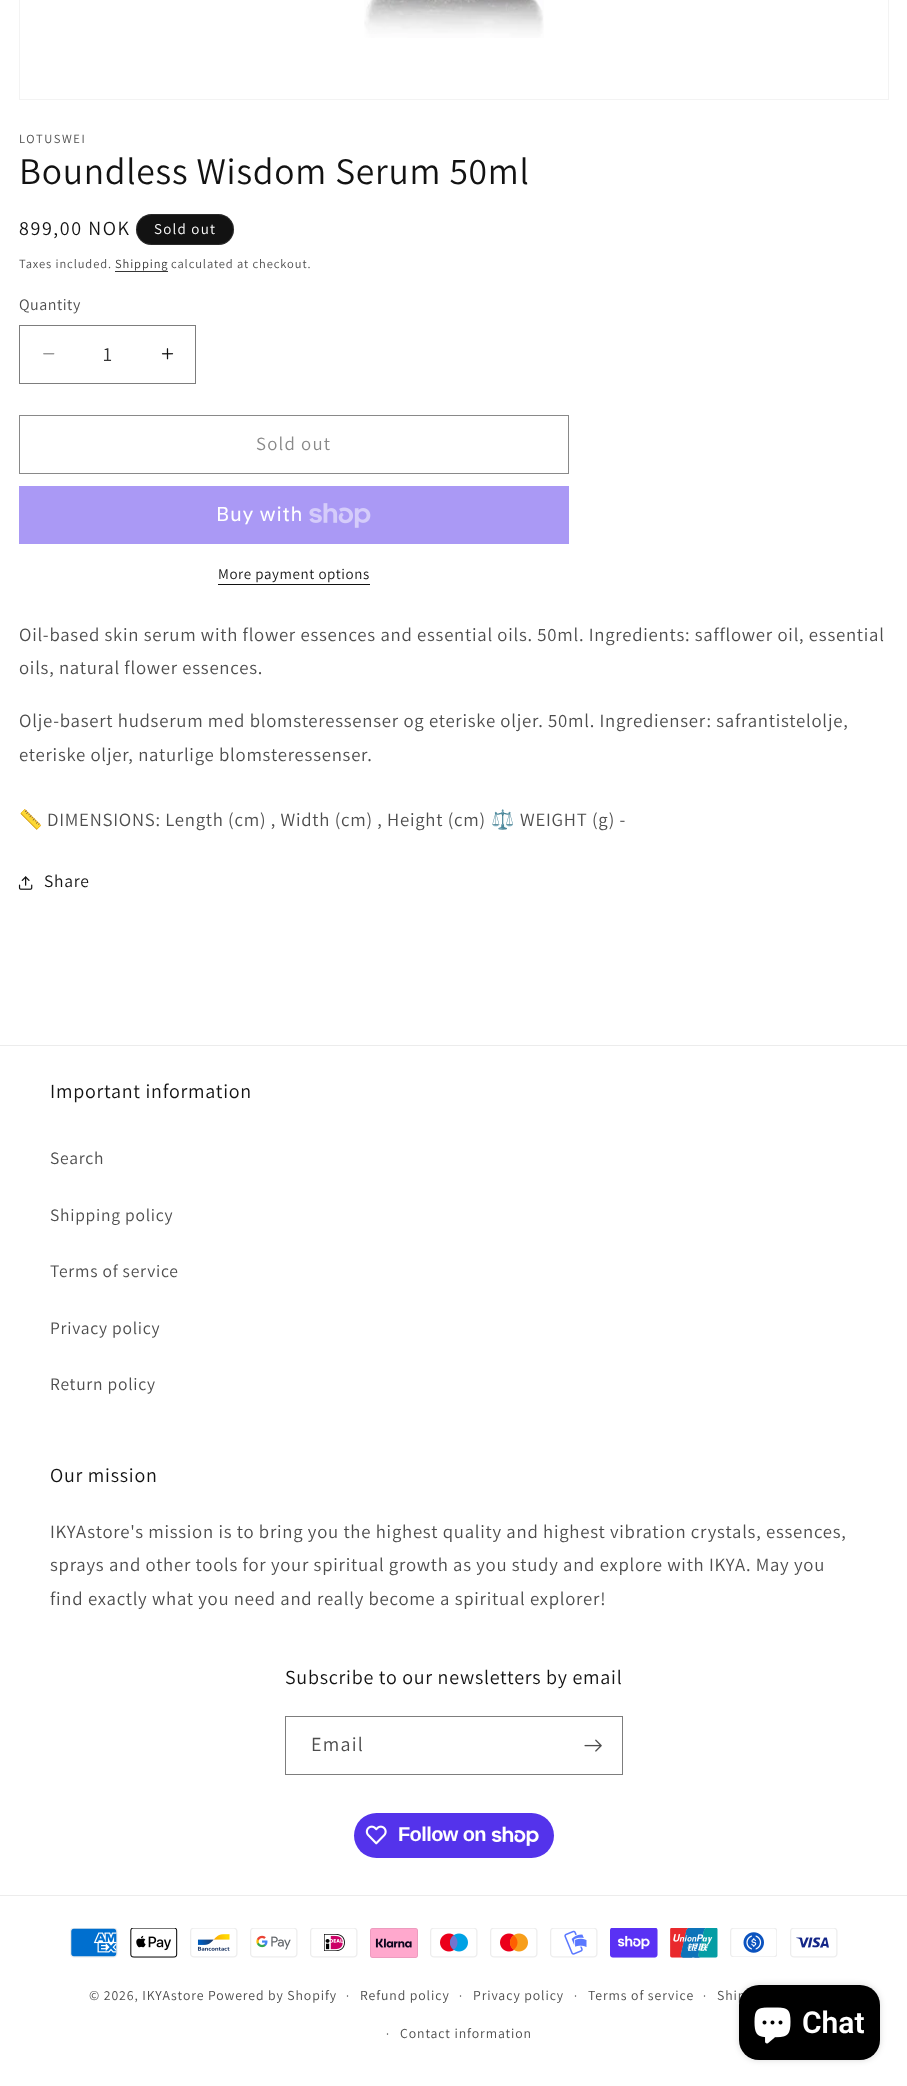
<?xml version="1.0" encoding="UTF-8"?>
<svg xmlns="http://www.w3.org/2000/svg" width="907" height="2086">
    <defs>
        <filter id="blur1" x="-50%" y="-200%" width="200%" height="500%"><feGaussianBlur stdDeviation="3"/></filter>
    </defs>
    <rect width="100%" height="100%" fill="#FFFFFF"/>
    <rect x="19.5" y="-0.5" width="869" height="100" fill="none" stroke="#F3F3F3"/>
    <image x="364" y="0" width="180" height="38" href="img_01.png"/>
    <text x="19" y="143" font-family="Assistant" font-size="12.5" letter-spacing="1.6" fill="#4D4D4D">LOTUSWEI</text>
    <text x="19" y="184" font-family="Assistant" font-size="37.5" letter-spacing="0.75" fill="#121212">Boundless Wisdom Serum 50ml</text>
    <text x="19" y="235" font-family="Assistant" font-size="20" letter-spacing="1.6" fill="#121212">899,00 NOK</text>
    <rect x="136" y="214" width="98" height="31" rx="15.5" fill="#121212"/>
    <rect x="136.5" y="214.5" width="97" height="30" rx="15" fill="none" stroke="#FFFFFF" stroke-opacity="0.1"/>
    <text x="154" y="234" font-family="Assistant" font-size="15" letter-spacing="1.25" fill="#FFFFFF">Sold out</text>
    <text x="19" y="268" font-family="Assistant" font-size="12.5" letter-spacing="0.9" fill="#4D4D4D">Taxes included.</text>
    <text x="115" y="268" font-family="Assistant" font-size="12.5" letter-spacing="0.9" fill="#363636">Shipping</text>
    <rect x="115" y="271" width="53" height="1" fill="#363636"/>
    <text x="171" y="268" font-family="Assistant" font-size="12.5" letter-spacing="0.9" fill="#4D4D4D">calculated at checkout.</text>
    <text x="19" y="310" font-family="Assistant" font-size="16" letter-spacing="0.5" fill="#4D4D4D">Quantity</text>
    <image x="43" y="353" width="12" height="2" href="img_02.png"/>
    <image x="161" y="348" width="13" height="12" href="img_03.png"/>
    <rect x="19.5" y="325.5" width="176" height="58" fill="none" stroke="#7D7D7D"/>
    <text x="103" y="361" font-family="Assistant" font-size="20" fill="#363636">1</text>
    <rect x="19.5" y="415.5" width="549" height="58" fill="none" stroke="#898989"/>
    <text x="256" y="450" font-family="Assistant" font-size="18.75" letter-spacing="1.25" fill="#898989">Sold out</text>
    <rect x="19" y="486" width="550" height="58" fill="#AA99F5"/>
    <text x="216" y="521" font-family="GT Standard" font-size="20" letter-spacing="0.75" fill="#FFFFFF">Buy with</text>
    <image x="309" y="503" width="62" height="25" href="img_04.png"/>
    <text x="218" y="579" font-family="Assistant" font-size="15" letter-spacing="0.6" fill="#121212">More payment options</text>
    <rect x="218" y="584" width="152" height="1" fill="#121212"/>
    <text font-family="Assistant" font-size="18.75" letter-spacing="0.75" fill="#4D4D4D">
        <tspan x="19" y="641">Oil-based skin serum with flower essences and essential oils. 50ml. Ingredients: safflower oil, essential</tspan>
        <tspan x="19" y="674">oils, natural flower essences.</tspan>
    </text>
    <text font-family="Assistant" font-size="18.75" letter-spacing="0.75" fill="#4D4D4D">
        <tspan x="19" y="727">Olje-basert hudserum med blomsteressenser og eteriske oljer. 50ml. Ingredienser: safrantistelolje,</tspan>
        <tspan x="19" y="761">eteriske oljer, naturlige blomsteressenser.</tspan>
    </text>
    <text x="19" y="826" font-family="Noto Color Emoji" font-size="18.75" letter-spacing="0.75" fill="#4D4D4D">📏</text>
    <text x="47" y="826" font-family="Assistant" font-size="18.75" letter-spacing="0.75" fill="#4D4D4D">DIMENSIONS: Length (cm) , Width (cm) , Height (cm)</text>
    <text x="491" y="826" font-family="Noto Color Emoji" font-size="18.75" letter-spacing="0.75" fill="#4D4D4D">⚖️</text>
    <text x="520" y="826" font-family="Assistant" font-size="18.75" letter-spacing="0.75" fill="#4D4D4D">WEIGHT (g) -</text>
    <image x="18" y="876" width="15" height="14" href="img_05.png"/>
    <text x="44" y="887" font-family="Assistant" font-size="17.5" letter-spacing="0.75" fill="#121212">Share</text>
    <rect x="0" y="1045" width="907" height="1" fill="#ECECEC"/>
    <text x="50" y="1098" font-family="Assistant" font-size="20" letter-spacing="0.75" fill="#121212">Important information</text>
    <text x="50" y="1164" font-family="Assistant" font-size="17.5" letter-spacing="0.75" fill="#4D4D4D">Search</text>
    <text x="50" y="1221" font-family="Assistant" font-size="17.5" letter-spacing="0.75" fill="#4D4D4D">Shipping policy</text>
    <text x="50" y="1277" font-family="Assistant" font-size="17.5" letter-spacing="0.75" fill="#4D4D4D">Terms of service</text>
    <text x="50" y="1334" font-family="Assistant" font-size="17.5" letter-spacing="0.75" fill="#4D4D4D">Privacy policy</text>
    <text x="50" y="1390" font-family="Assistant" font-size="17.5" letter-spacing="0.75" fill="#4D4D4D">Return policy</text>
    <text x="50" y="1482" font-family="Assistant" font-size="20" letter-spacing="0.75" fill="#121212">Our mission</text>
    <text font-family="Assistant" font-size="18.75" letter-spacing="0.75" fill="#4D4D4D">
        <tspan x="50" y="1538">IKYAstore's mission is to bring you the highest quality and highest vibration crystals, essences,</tspan>
        <tspan x="50" y="1571">sprays and other tools for your spiritual growth as you study and explore with IKYA. May you</tspan>
        <tspan x="50" y="1605">find exactly what you need and really become a spiritual explorer!</tspan>
    </text>
    <text x="285" y="1684" font-family="Assistant" font-size="20" letter-spacing="0.75" fill="#121212">Subscribe to our newsletters by email</text>
    <rect x="285.5" y="1716.5" width="337" height="58" fill="none" stroke="#7D7D7D"/>
    <text x="311" y="1751" font-family="Assistant" font-size="20" letter-spacing="1.25" fill="#4D4D4D">Email</text>
    <image x="584" y="1739" width="18" height="13" href="img_06.png"/>
    <rect x="354" y="1813" width="200" height="45" rx="22.5" fill="#5433EB"/>
    <image x="365" y="1825" width="22" height="20" href="img_07.png"/>
    <text x="398" y="1841" font-family="Liberation Sans" font-size="20" font-weight="700" letter-spacing="-0.6" fill="#FFFFFF">Follow on</text>
    <image x="491" y="1826" width="48" height="20" href="img_08.png"/>
    <rect x="0" y="1895" width="907" height="1" fill="#ECECEC"/>
    <image x="70" y="1928" width="48" height="30" href="img_09.png"/>
    <image x="130" y="1928" width="48" height="30" href="img_10.png"/>
    <image x="190" y="1928" width="48" height="30" href="img_11.png"/>
    <image x="250" y="1928" width="48" height="30" href="img_12.png"/>
    <image x="310" y="1928" width="48" height="30" href="img_13.png"/>
    <image x="370" y="1928" width="48" height="30" href="img_14.png"/>
    <image x="430" y="1928" width="48" height="30" href="img_15.png"/>
    <image x="490" y="1928" width="48" height="30" href="img_16.png"/>
    <image x="550" y="1928" width="48" height="30" href="img_17.png"/>
    <image x="610" y="1928" width="48" height="30" href="img_18.png"/>
    <image x="670" y="1928" width="48" height="30" href="img_19.png"/>
    <image x="730" y="1928" width="47" height="29" href="img_20.png"/>
    <image x="790" y="1928" width="48" height="30" href="img_21.png"/>
    <text x="89" y="2000" font-family="Assistant" font-size="13.75" letter-spacing="0.9" fill="#4D4D4D">© 2026, IKYAstore Powered by Shopify</text>
    <text x="346" y="2000" font-family="Assistant" font-size="12.5" letter-spacing="0.9" fill="#4D4D4D">·</text>
    <text x="360" y="2000" font-family="Assistant" font-size="13.75" letter-spacing="0.9" fill="#4D4D4D">Refund policy</text>
    <text x="459" y="2000" font-family="Assistant" font-size="12.5" letter-spacing="0.9" fill="#4D4D4D">·</text>
    <text x="473" y="2000" font-family="Assistant" font-size="13.75" letter-spacing="0.9" fill="#4D4D4D">Privacy policy</text>
    <text x="574" y="2000" font-family="Assistant" font-size="12.5" letter-spacing="0.9" fill="#4D4D4D">·</text>
    <text x="588" y="2000" font-family="Assistant" font-size="13.75" letter-spacing="0.9" fill="#4D4D4D">Terms of service</text>
    <text x="703" y="2000" font-family="Assistant" font-size="12.5" letter-spacing="0.9" fill="#4D4D4D">·</text>
    <text x="717" y="2000" font-family="Assistant" font-size="13.75" letter-spacing="0.9" fill="#4D4D4D">Ship</text>
    <text x="386" y="2038" font-family="Assistant" font-size="12.5" letter-spacing="0.9" fill="#4D4D4D">·</text>
    <text x="400" y="2038" font-family="Assistant" font-size="13.75" letter-spacing="0.9" fill="#4D4D4D">Contact information</text>
    <rect x="739" y="1985" width="141" height="75" rx="20" fill="#000000" fill-opacity="0.15" filter="url(#blur1)"/>
    <rect x="739" y="1985" width="141" height="75" rx="20" fill="#000000"/>
    <image x="754" y="2007" width="37" height="37" href="img_22.png"/>
    <text x="802" y="2033" font-family="Roboto" font-size="30" font-weight="600" fill="#FFFFFF">Chat</text>
</svg>
